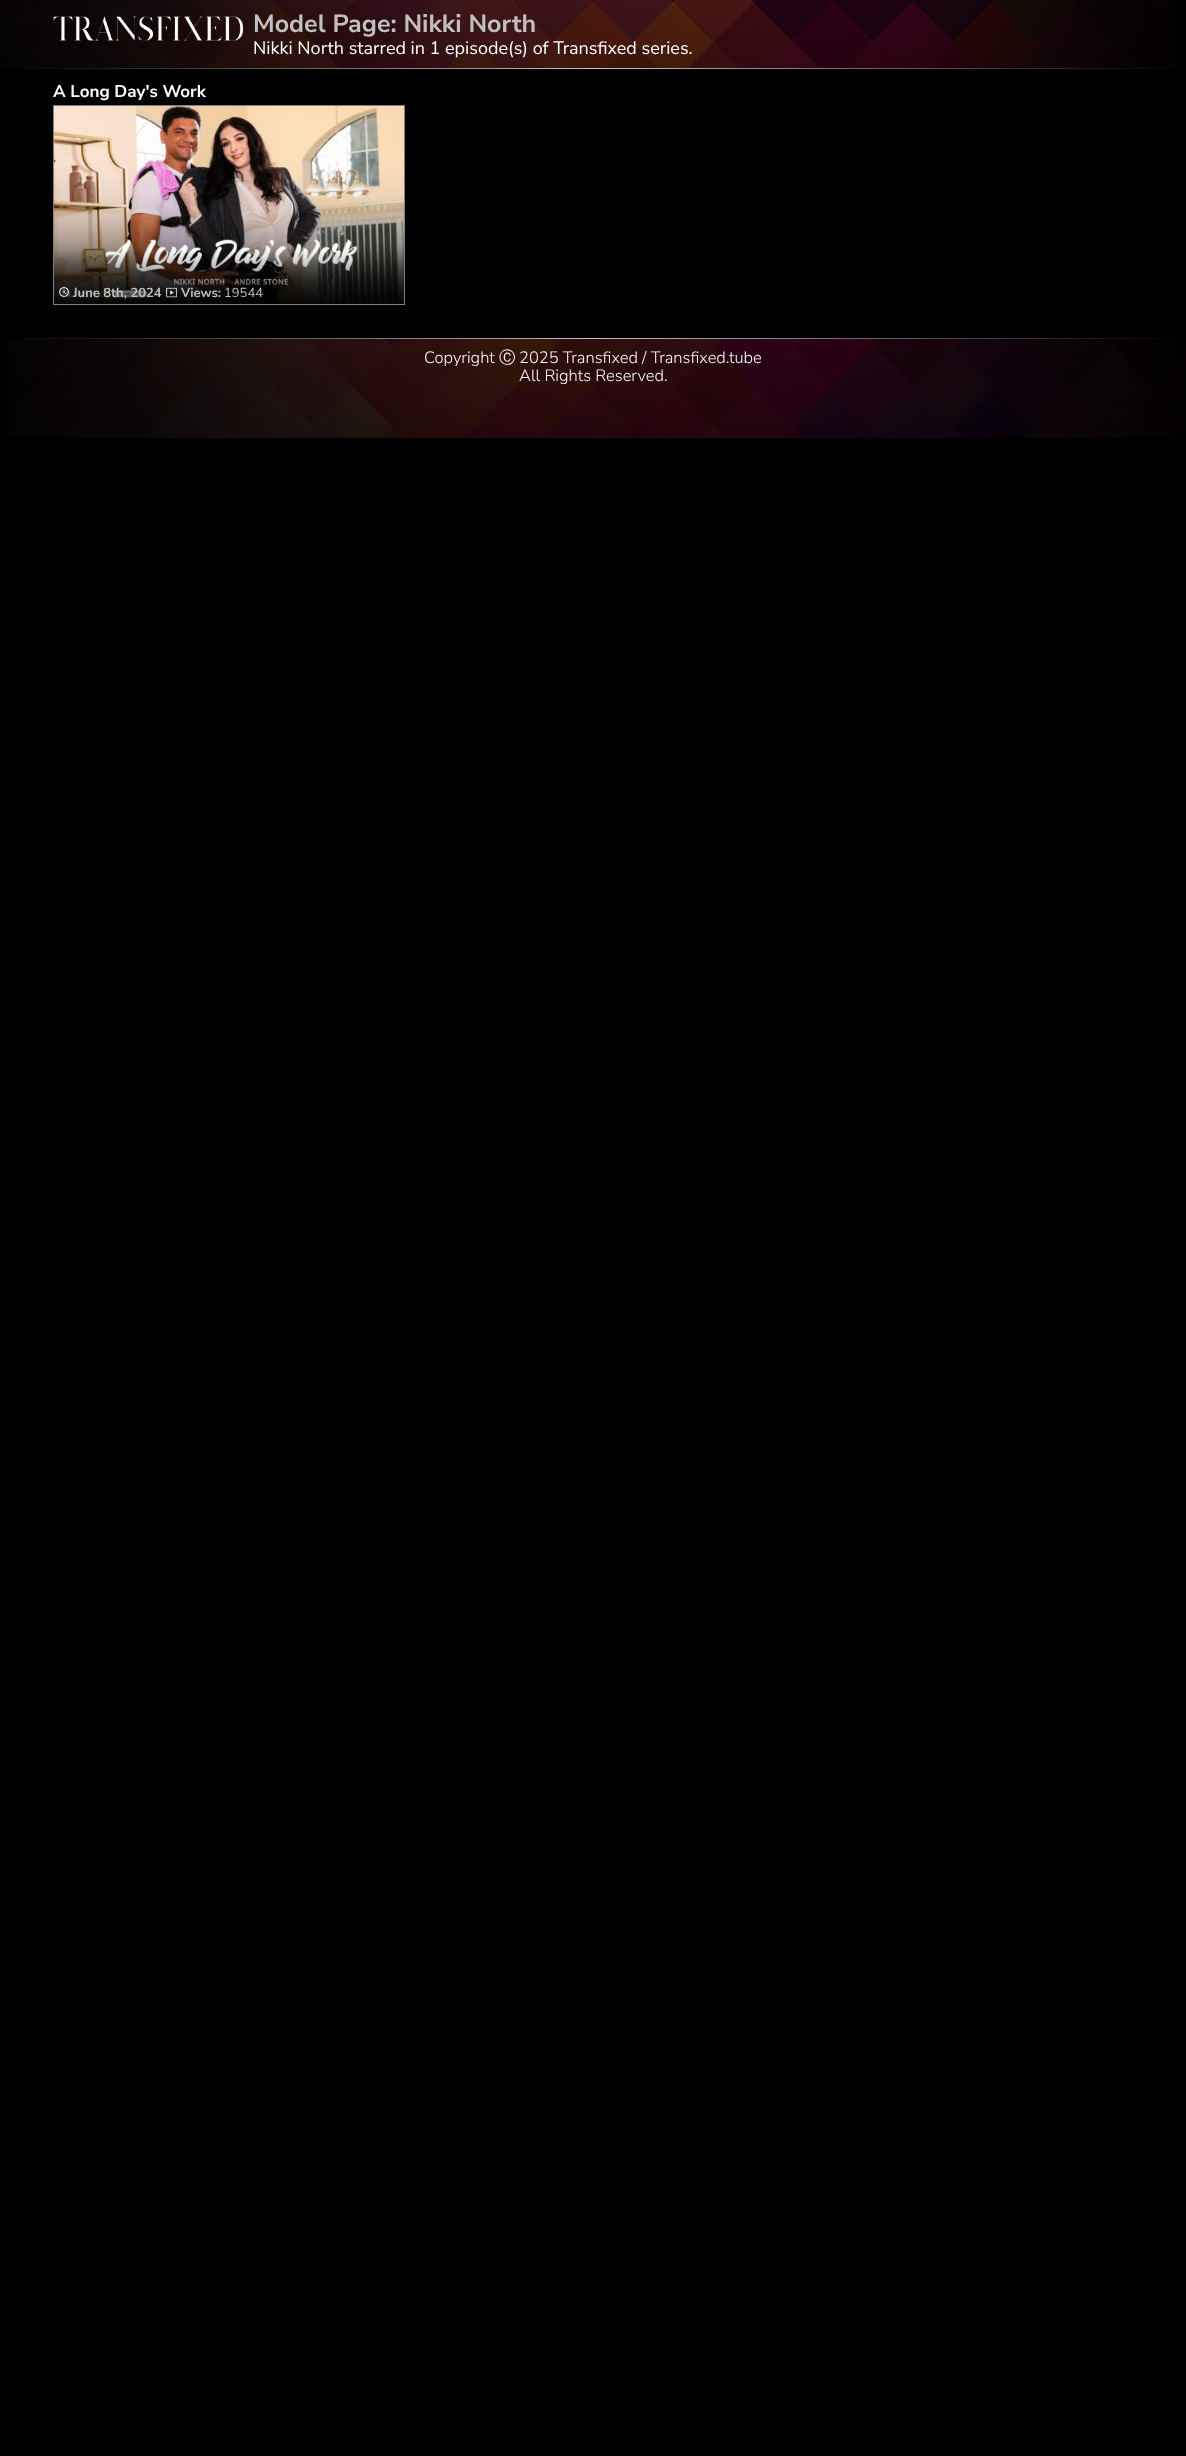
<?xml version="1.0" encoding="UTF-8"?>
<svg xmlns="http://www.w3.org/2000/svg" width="1186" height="2456">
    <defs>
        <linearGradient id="g1" gradientUnits="userSpaceOnUse" x1="0" y1="69" x2="1186" y2="68"><stop offset="0" stop-color="#000000"/><stop offset="0.5" stop-color="#C0C0C0"/><stop offset="1" stop-color="#000000"/></linearGradient>
        <linearGradient id="g2" gradientUnits="userSpaceOnUse" x1="0" y1="339" x2="1186" y2="338"><stop offset="0" stop-color="#000000"/><stop offset="0.5" stop-color="#C0C0C0"/><stop offset="1" stop-color="#000000"/></linearGradient>
    </defs>
    <rect width="100%" height="100%" fill="#000000"/>
    <image x="0" y="0" width="1177" height="68" href="img_01.png"/>
    <image x="53" y="16" width="190" height="25" href="img_02.png"/>
    <text x="253" y="32" font-family="Nunito Sans" font-size="25" font-weight="700" fill="#C0C0C0">Model Page: Nikki North</text>
    <text x="253" y="54" font-family="Nunito Sans" font-size="18" fill="#FFFFFF">Nikki North starred in 1 episode(s) of Transfixed series.</text>
    <rect x="0" y="68" width="1186" height="1" fill="url(#g1)"/>
    <text x="53" y="97" font-family="Nunito Sans" font-size="17" font-weight="700" fill="#FFFFFF">A Long Day's Work</text>
    <rect x="53.5" y="105.5" width="351" height="199" fill="none" stroke="#808080"/>
    <image x="54" y="106" width="350" height="198" href="img_03.png"/>
    <image x="59" y="287" width="10" height="10" href="img_04.png"/>
    <text x="73" y="297" font-family="Nunito Sans" font-size="13" font-weight="700" fill="#C0C0C0">June 8th, 2024</text>
    <image x="166" y="287" width="11" height="11" href="img_05.png"/>
    <text x="181" y="297" font-family="Nunito Sans" font-size="13" font-weight="700" fill="#C0C0C0">Views:</text>
    <text x="224" y="297" font-family="Nunito Sans" font-size="13" fill="#C0C0C0">19544</text>
    <image x="7" y="339" width="1179" height="99" href="img_06.png"/>
    <rect x="0" y="338" width="1186" height="1" fill="url(#g2)"/>
    <text x="424" y="363" font-family="Nunito Sans" font-size="16.5" font-weight="300" fill="#F8F8FF">Copyright</text>
    <text x="499" y="363" font-family="WenQuanYi Zen Hei" font-size="16.5" font-weight="500" fill="#F8F8FF">Ⓒ</text>
    <text font-family="Nunito Sans" font-size="16.5" font-weight="300" fill="#F8F8FF">
        <tspan x="519" y="363">2025 Transfixed / Transfixed.tube</tspan>
        <tspan x="519" y="381">All Rights Reserved.</tspan>
    </text>
</svg>
